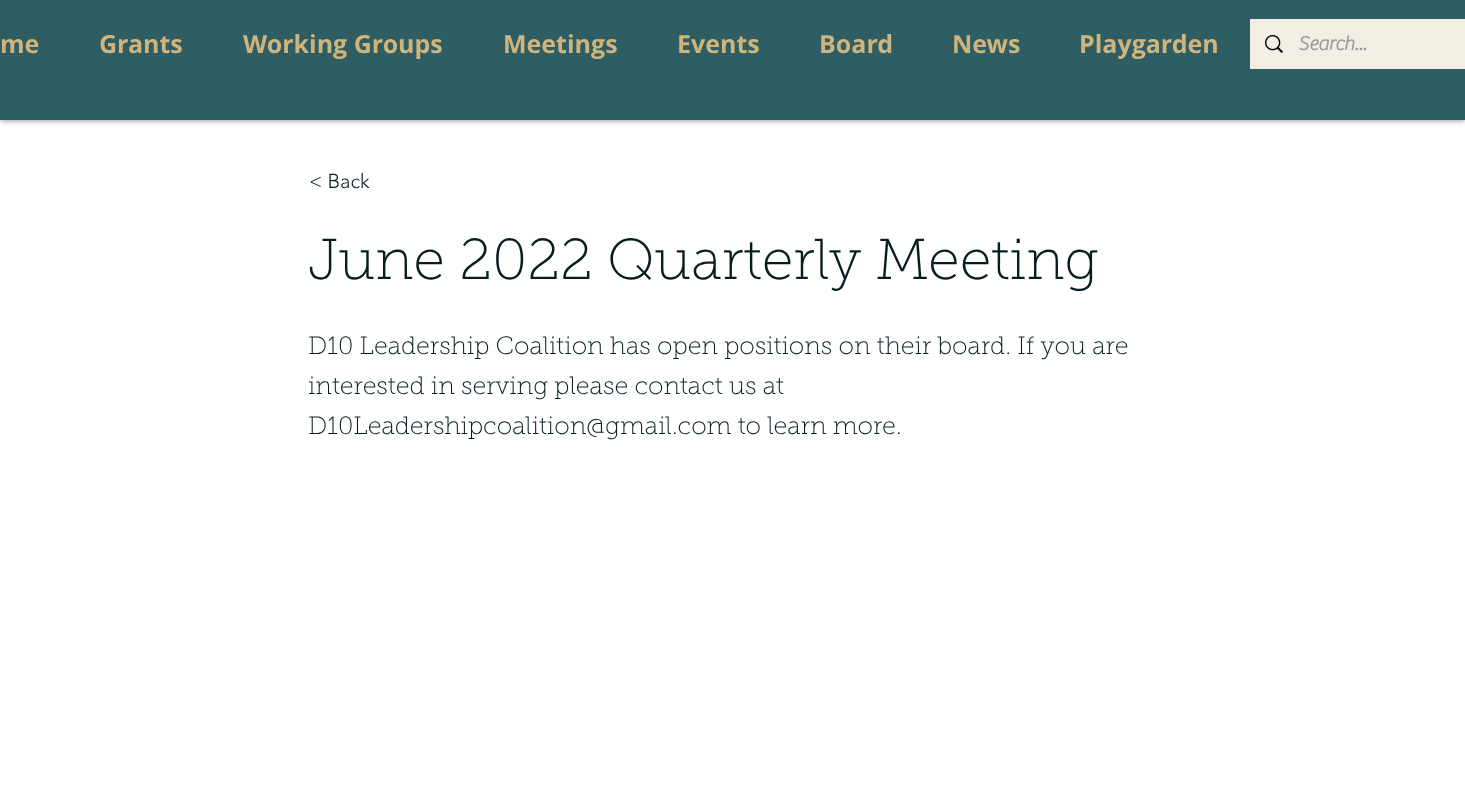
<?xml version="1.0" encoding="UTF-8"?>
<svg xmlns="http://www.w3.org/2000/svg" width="1465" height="804">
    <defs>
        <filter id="blur1" x="-50%" y="-200%" width="200%" height="500%"><feGaussianBlur stdDeviation="3"/></filter>
    </defs>
    <rect width="100%" height="100%" fill="#FFFFFF"/>
    <rect x="0" y="0" width="1465" height="120" fill="#000000" fill-opacity="0.5" filter="url(#blur1)"/>
    <rect x="0" y="0" width="1465" height="120" fill="#2E5D63"/>
    <text x="0" y="53" font-family="Open Sans" font-size="25" font-weight="700" fill="#CFB57C">me</text>
    <text x="99" y="53" font-family="Open Sans" font-size="25" font-weight="700" fill="#CFB57C">Grants</text>
    <text x="243" y="53" font-family="Open Sans" font-size="25" font-weight="700" fill="#CFB57C">Working Groups</text>
    <text x="503" y="53" font-family="Open Sans" font-size="25" font-weight="700" fill="#CFB57C">Meetings</text>
    <text x="677" y="53" font-family="Open Sans" font-size="25" font-weight="700" fill="#CFB57C">Events</text>
    <text x="819" y="53" font-family="Open Sans" font-size="25" font-weight="700" fill="#CFB57C">Board</text>
    <text x="952" y="53" font-family="Open Sans" font-size="25" font-weight="700" fill="#CFB57C">News</text>
    <text x="1079" y="53" font-family="Open Sans" font-size="25" font-weight="700" fill="#CFB57C">Playgarden</text>
    <rect x="1250" y="19" width="215" height="50" fill="#F2EEE4"/>
    <image x="1265" y="35" width="18" height="18" href="img_01.png"/>
    <text x="1298" y="50" font-family="'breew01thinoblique'" font-size="20" font-weight="700" fill="#999999">Search...</text>
    <text x="309" y="188" font-family="'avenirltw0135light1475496'" font-size="20" font-weight="300" fill="#061E20">&lt; Back</text>
    <text x="308" y="279" font-family="'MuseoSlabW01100'" font-size="57.5" font-weight="100" fill="#061E20">June 2022 Quarterly Meeting</text>
    <text font-family="'MuseoSlabW01100'" font-size="25" font-weight="100" fill="#061E20">
        <tspan x="308" y="354">D10 Leadership Coalition has open positions on their board. If you are</tspan>
        <tspan x="308" y="394">interested in serving please contact us at</tspan>
        <tspan x="308" y="434">D10Leadershipcoalition@gmail.com to learn more.</tspan>
    </text>
</svg>
